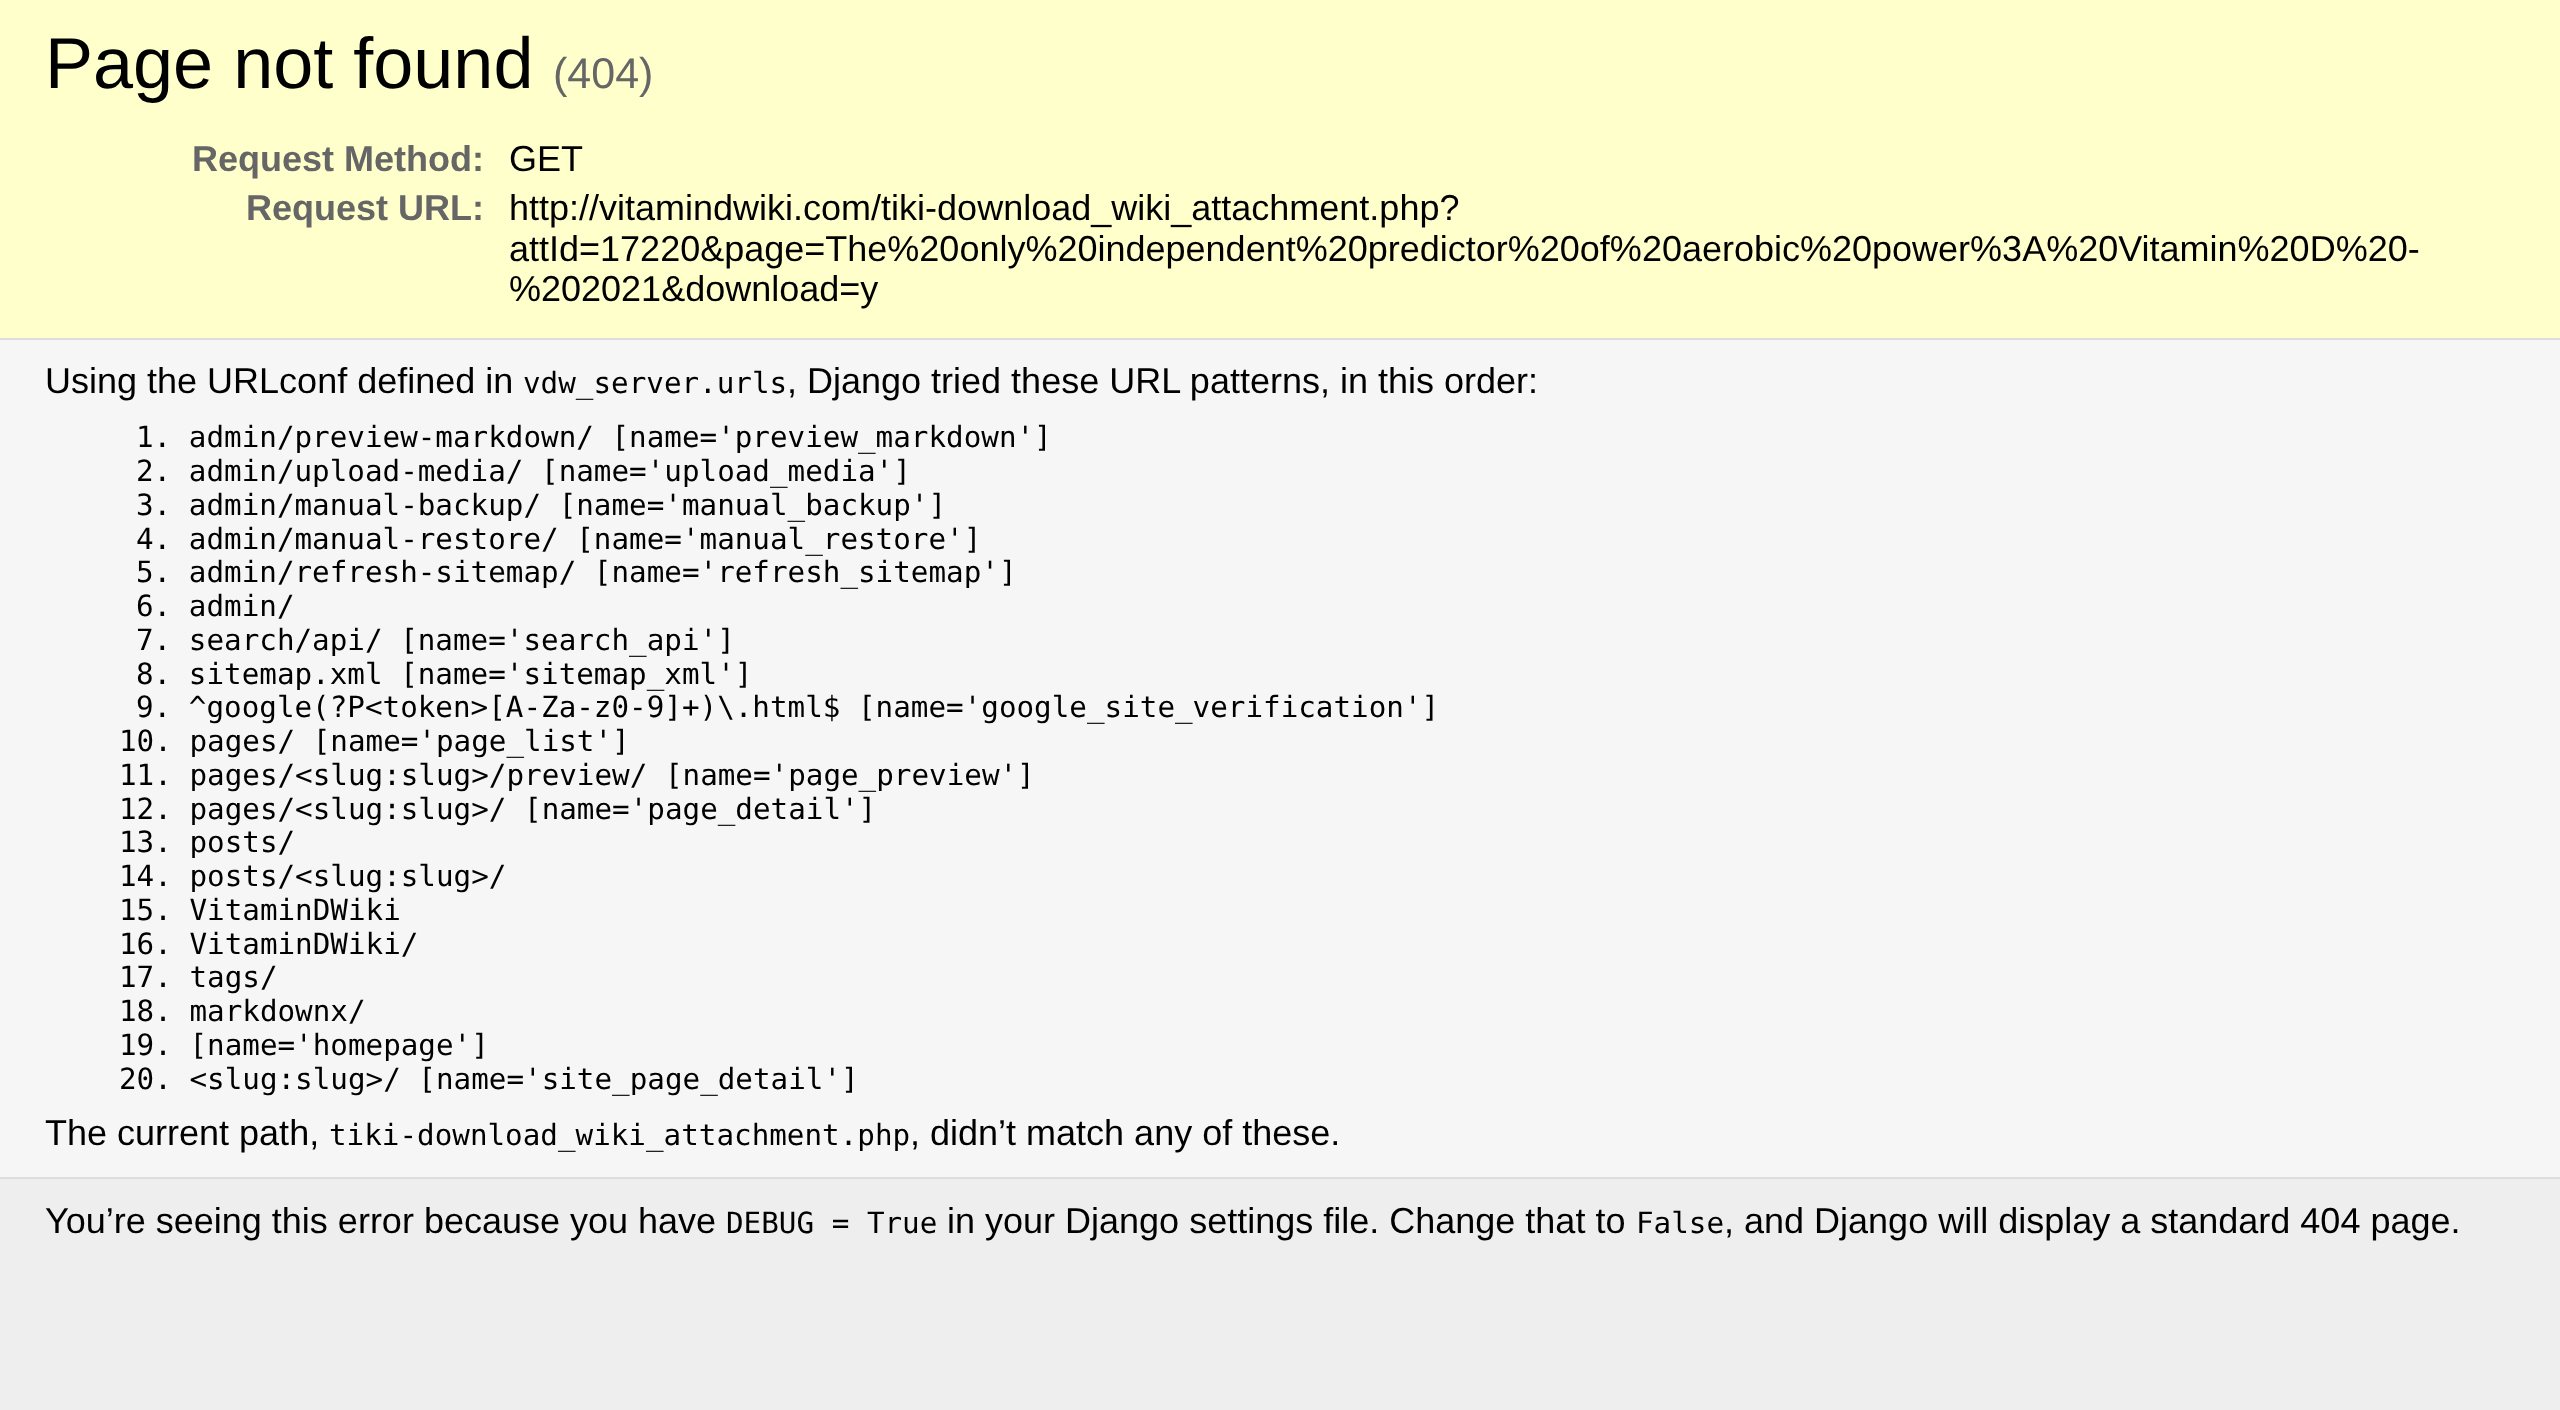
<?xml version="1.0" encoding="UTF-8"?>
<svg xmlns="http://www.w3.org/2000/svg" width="2560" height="1410">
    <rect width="100%" height="100%" fill="#EEEEEE"/>
    <rect x="0" y="0" width="2560" height="338" fill="#FFFFCC"/>
    <rect x="0" y="338" width="2560" height="2" fill="#DDDDDD"/>
    <text x="45" y="88" font-family="Liberation Sans" font-size="72" fill="#000000">Page not found</text>
    <text x="553" y="88" font-family="Liberation Sans" font-size="43" fill="#666666">(404)</text>
    <text x="192" y="171" font-family="Liberation Sans" font-size="36" font-weight="700" fill="#666666">Request Method:</text>
    <text x="509" y="171" font-family="Liberation Sans" font-size="36" fill="#000000">GET</text>
    <text x="246" y="220" font-family="Liberation Sans" font-size="36" font-weight="700" fill="#666666">Request URL:</text>
    <text font-family="Liberation Sans" font-size="36" fill="#000000">
        <tspan x="509" y="220">http://vitamindwiki.com/tiki-download_wiki_attachment.php?</tspan>
        <tspan x="509" y="261">attId=17220&amp;page=The%20only%20independent%20predictor%20of%20aerobic%20power%3A%20Vitamin%20D%20-</tspan>
        <tspan x="509" y="301">%202021&amp;download=y</tspan>
    </text>
    <rect x="0" y="340" width="2560" height="837" fill="#F6F6F6"/>
    <rect x="0" y="1177" width="2560" height="2" fill="#DDDDDD"/>
    <text x="45" y="393" font-family="Liberation Sans" font-size="36" fill="#000000">Using the URLconf defined in</text>
    <text x="523" y="393" font-family="DejaVu Sans Mono" font-size="29.25" fill="#000000">vdw_server.urls</text>
    <text x="787" y="393" font-family="Liberation Sans" font-size="36" fill="#000000">, Django tried these URL patterns, in this order:</text>
    <text font-family="DejaVu Sans Mono" font-size="29.25" fill="#000000">
        <tspan x="136" y="447">1. admin/preview-markdown/ [name='preview_markdown']</tspan>
        <tspan x="136" y="481">2. admin/upload-media/ [name='upload_media']</tspan>
        <tspan x="136" y="515">3. admin/manual-backup/ [name='manual_backup']</tspan>
        <tspan x="136" y="549">4. admin/manual-restore/ [name='manual_restore']</tspan>
        <tspan x="136" y="582">5. admin/refresh-sitemap/ [name='refresh_sitemap']</tspan>
        <tspan x="136" y="616">6. admin/</tspan>
        <tspan x="136" y="650">7. search/api/ [name='search_api']</tspan>
        <tspan x="136" y="684">8. sitemap.xml [name='sitemap_xml']</tspan>
        <tspan x="136" y="717">9. ^google(?P&lt;token&gt;[A-Za-z0-9]+)\.html$ [name='google_site_verification']</tspan>
    </text>
    <text font-family="DejaVu Sans Mono" font-size="29.25" fill="#000000">
        <tspan x="119" y="751">10. pages/ [name='page_list']</tspan>
        <tspan x="119" y="785">11. pages/&lt;slug:slug&gt;/preview/ [name='page_preview']</tspan>
        <tspan x="119" y="819">12. pages/&lt;slug:slug&gt;/ [name='page_detail']</tspan>
        <tspan x="119" y="852">13. posts/</tspan>
        <tspan x="119" y="886">14. posts/&lt;slug:slug&gt;/</tspan>
        <tspan x="119" y="920">15. VitaminDWiki</tspan>
        <tspan x="119" y="954">16. VitaminDWiki/</tspan>
        <tspan x="119" y="987">17. tags/</tspan>
        <tspan x="119" y="1021">18. markdownx/</tspan>
        <tspan x="119" y="1055">19. [name='homepage']</tspan>
        <tspan x="119" y="1089">20. &lt;slug:slug&gt;/ [name='site_page_detail']</tspan>
    </text>
    <text x="45" y="1145" font-family="Liberation Sans" font-size="36" fill="#000000">The current path,</text>
    <text x="329" y="1145" font-family="DejaVu Sans Mono" font-size="29.25" fill="#000000">tiki-download_wiki_attachment.php</text>
    <text x="910" y="1145" font-family="Liberation Sans" font-size="36" fill="#000000">, didn’t match any of these.</text>
    <text x="45" y="1233" font-family="Liberation Sans" font-size="36" fill="#000000">You’re seeing this error because you have</text>
    <text x="726" y="1233" font-family="DejaVu Sans Mono" font-size="29.25" fill="#000000">DEBUG = True</text>
    <text x="947" y="1233" font-family="Liberation Sans" font-size="36" fill="#000000">in your Django settings file. Change that to</text>
    <text x="1636" y="1233" font-family="DejaVu Sans Mono" font-size="29.25" fill="#000000">False</text>
    <text x="1724" y="1233" font-family="Liberation Sans" font-size="36" fill="#000000">, and Django will display a standard 404 page.</text>
</svg>
